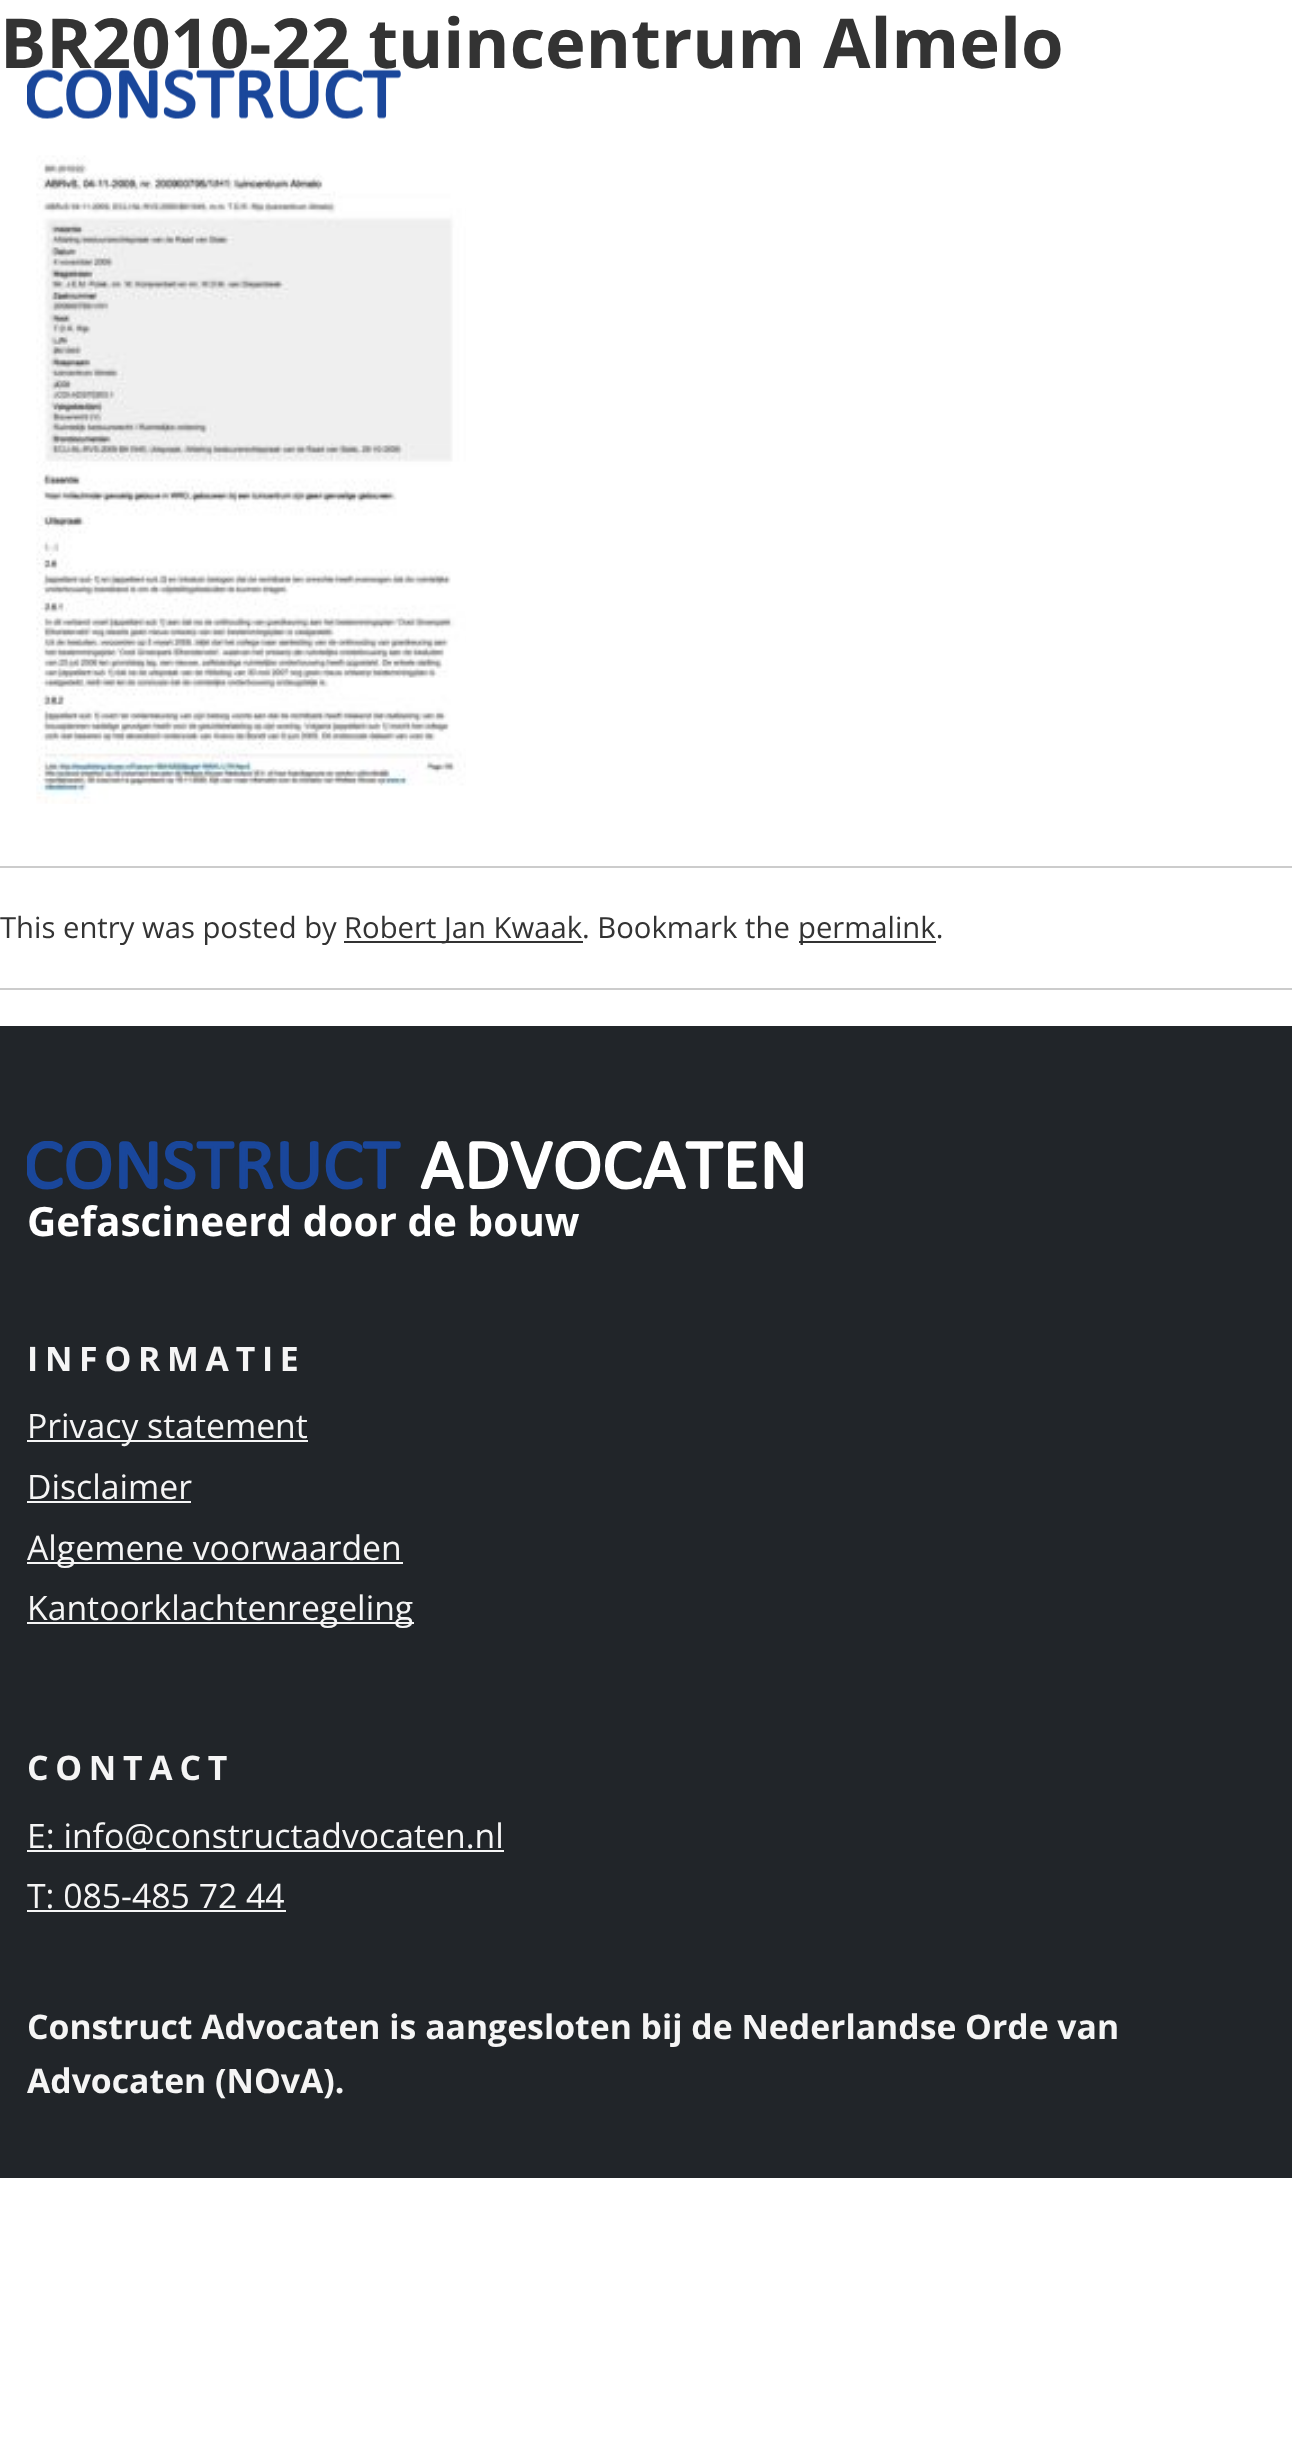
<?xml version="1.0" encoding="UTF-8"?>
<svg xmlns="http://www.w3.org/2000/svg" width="1292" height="2448">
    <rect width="100%" height="100%" fill="#FFFFFF"/>
    <text x="0" y="68" font-family="Open Sans" font-size="68.9" font-weight="700" fill="#333333">BR2010-22 tuincentrum Almelo</text>
    <image x="36" y="155" width="430" height="649" href="img_01.png"/>
    <rect x="0" y="866" width="1292" height="2" fill="#CCCCCC"/>
    <text x="0" y="938" font-family="Open Sans" font-size="29.25" fill="#333333">This entry was posted by</text>
    <rect x="344" y="941" width="239" height="2" fill="#333333"/>
    <text x="344" y="938" font-family="Open Sans" font-size="29.25" fill="#333333">Robert Jan Kwaak. Bookmark the</text>
    <rect x="799" y="941" width="137" height="2" fill="#333333"/>
    <text x="798" y="938" font-family="Open Sans" font-size="29.25" fill="#333333">permalink.</text>
    <rect x="0" y="988" width="1292" height="2" fill="#CCCCCC"/>
    <image x="27" y="69" width="374" height="50" href="img_02.png"/>
    <rect x="0" y="1026" width="1292" height="1152" fill="#212529"/>
    <image x="27" y="1141" width="776" height="49" href="img_03.png"/>
    <text x="27" y="1236" font-family="Open Sans" font-size="40.5" font-weight="700" fill="#FFFFFF">Gefascineerd door de bouw</text>
    <text x="27" y="1371" font-family="Open Sans" font-size="33.75" font-weight="700" letter-spacing="6.75" fill="#F5F5F5">INFORMATIE</text>
    <rect x="27" y="1440" width="281" height="2" fill="#F5F5F5"/>
    <text font-family="Open Sans" font-size="33.75" fill="#F5F5F5">
        <tspan x="27" y="1438">Privacy statement</tspan>
        <tspan x="27" y="1499">Disclaimer</tspan>
    </text>
    <rect x="27" y="1501" width="164" height="2" fill="#F5F5F5"/>
    <rect x="27" y="1562" width="376" height="2" fill="#F5F5F5"/>
    <text x="27" y="1560" font-family="Open Sans" font-size="33.75" fill="#F5F5F5">Algemene voorwaarden</text>
    <rect x="27" y="1622" width="387" height="2" fill="#F5F5F5"/>
    <text x="27" y="1620" font-family="Open Sans" font-size="33.75" fill="#F5F5F5">Kantoorklachtenregeling</text>
    <text x="27" y="1780" font-family="Open Sans" font-size="33.75" font-weight="700" letter-spacing="6.75" fill="#F5F5F5">CONTACT</text>
    <rect x="27" y="1850" width="477" height="2" fill="#F5F5F5"/>
    <text font-family="Open Sans" font-size="33.75" fill="#F5F5F5">
        <tspan x="27" y="1848">E: info@constructadvocaten.nl</tspan>
        <tspan x="27" y="1908">T: 085-485 72 44</tspan>
    </text>
    <rect x="27" y="1910" width="259" height="2" fill="#F5F5F5"/>
    <text font-family="Open Sans" font-size="33.75" font-weight="700" fill="#F5F5F5">
        <tspan x="27" y="2039">Construct Advocaten is aangesloten bij de Nederlandse Orde van</tspan>
        <tspan x="27" y="2093">Advocaten (NOvA).</tspan>
    </text>
</svg>
